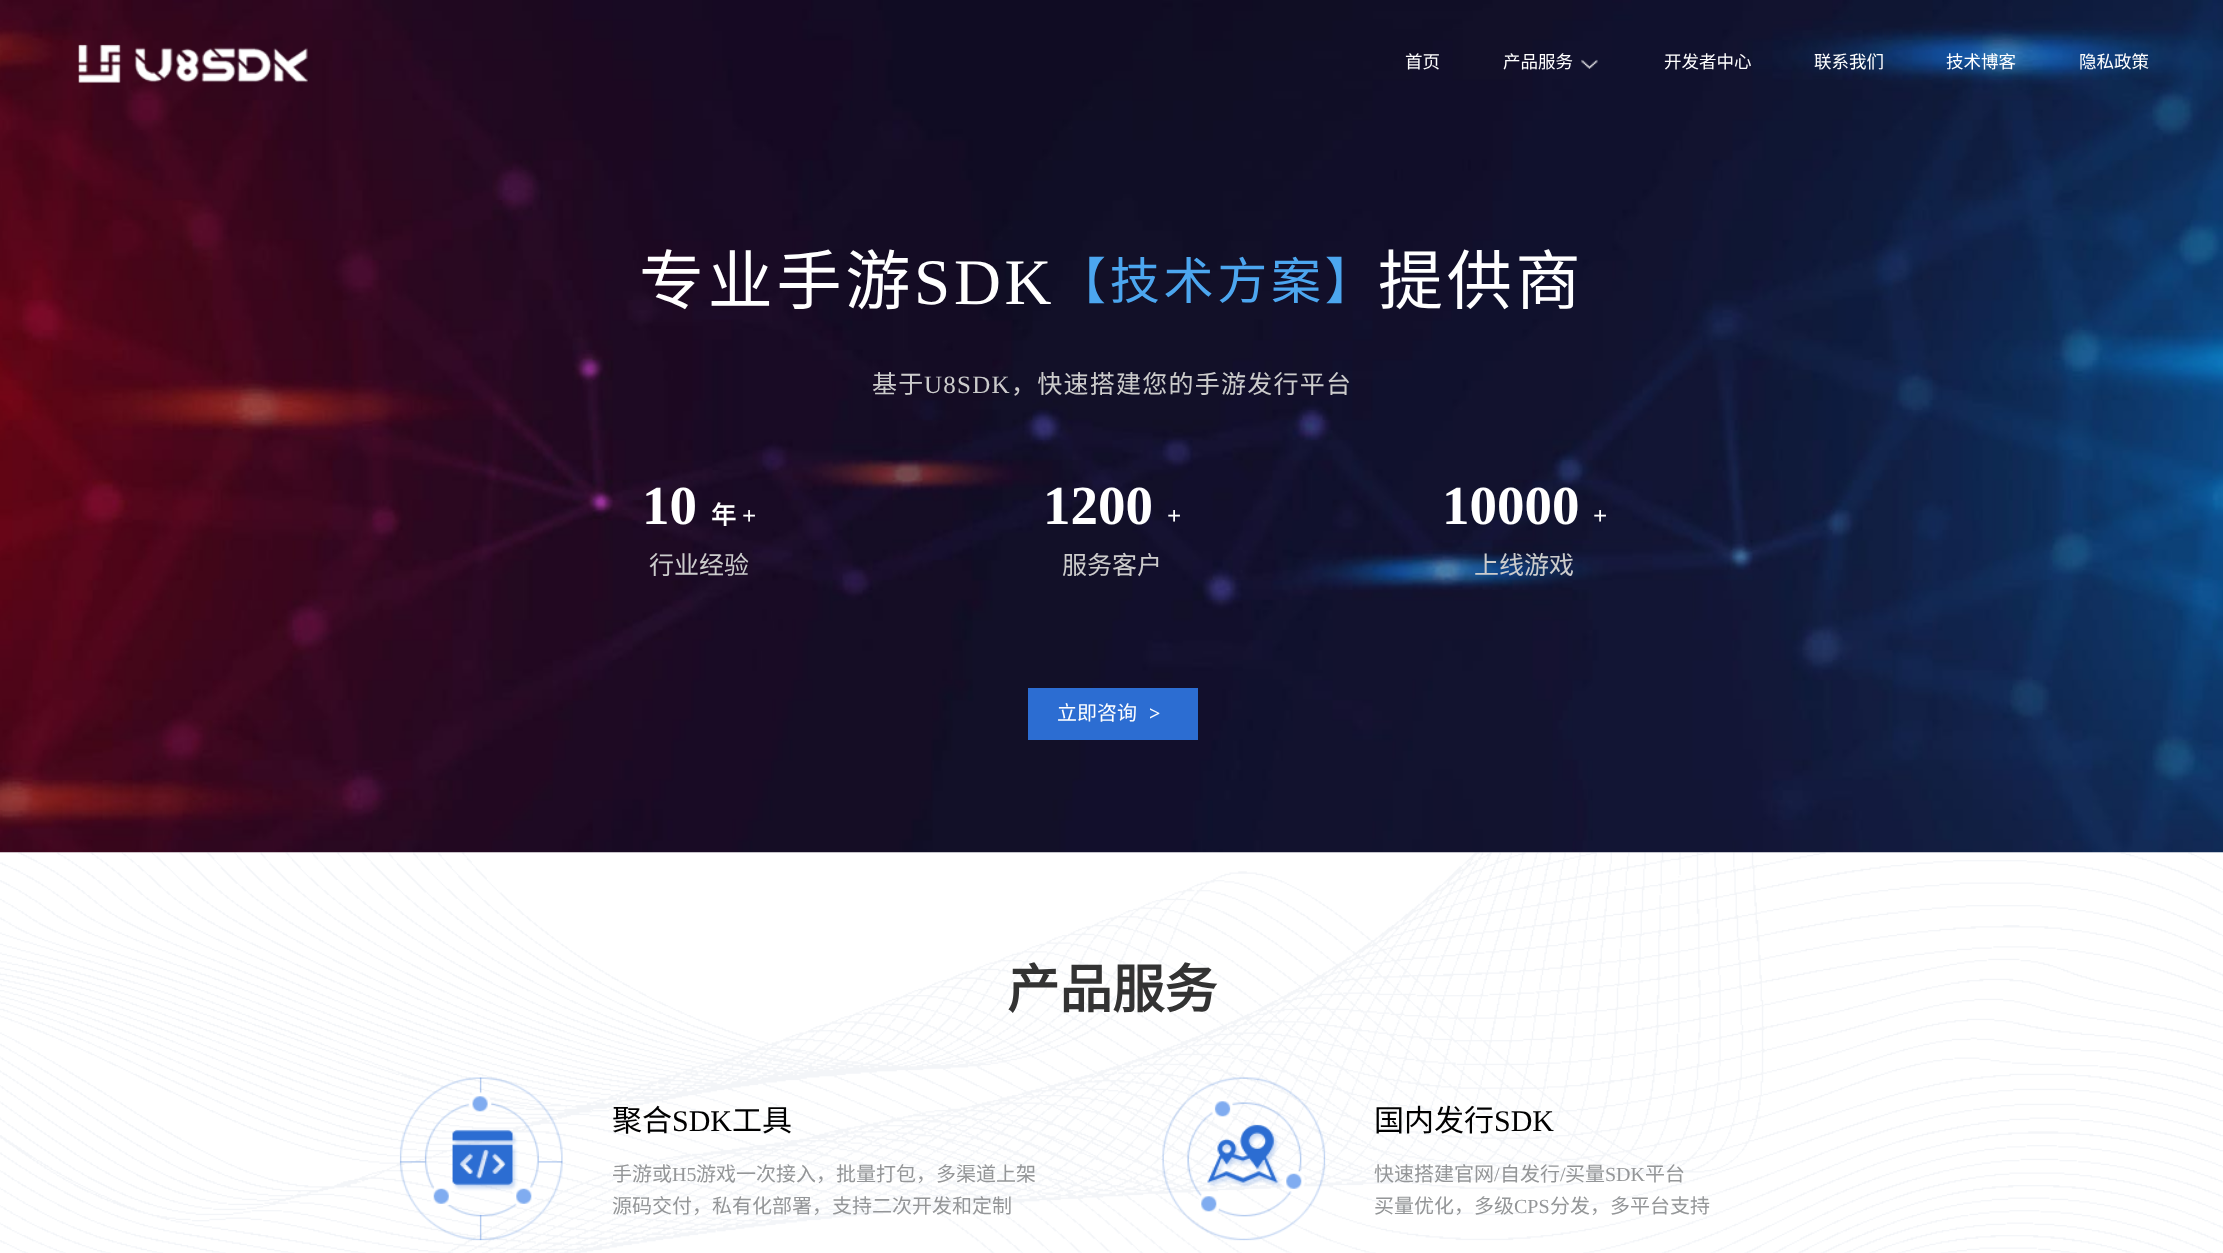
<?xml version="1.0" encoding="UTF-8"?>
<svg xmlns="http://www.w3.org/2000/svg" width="2223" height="1253">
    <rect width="100%" height="100%" fill="#FFFFFF"/>
    <image x="0" y="852" width="2223" height="401" href="img_04.png"/>
    <image x="0" y="0" width="2223" height="853" href="img_03.png"/>
    <image x="78" y="44" width="230" height="39" href="img_01.png"/>
    <text x="1405" y="68" font-family="Noto Sans CJK SC" font-size="17.5" fill="#FFFFFF">首页</text>
    <text x="1503" y="68" font-family="Noto Sans CJK SC" font-size="17.5" fill="#FFFFFF">产品服务</text>
    <image x="1581" y="59" width="17" height="10" href="img_02.png"/>
    <text x="1664" y="68" font-family="Noto Sans CJK SC" font-size="17.5" fill="#FFFFFF">开发者中心</text>
    <text x="1814" y="68" font-family="Noto Sans CJK SC" font-size="17.5" fill="#FFFFFF">联系我们</text>
    <text x="1946" y="68" font-family="Noto Sans CJK SC" font-size="17.5" fill="#FFFFFF">技术博客</text>
    <text x="2079" y="68" font-family="Noto Sans CJK SC" font-size="17.5" fill="#FFFFFF">隐私政策</text>
    <text x="639" y="304" font-family="Noto Sans CJK SC" font-size="65" letter-spacing="3.75" fill="#FFFFFF">专业手游</text>
    <text x="914" y="304" font-family="Liberation Serif" font-size="65" letter-spacing="3.75" fill="#FFFFFF">SDK</text>
    <text x="1056" y="299" font-family="Noto Sans CJK SC" font-size="50" letter-spacing="3.75" fill="#4CA6EF">【技术方案】</text>
    <text x="1378" y="304" font-family="Noto Sans CJK SC" font-size="65" letter-spacing="3.75" fill="#FFFFFF">提供商</text>
    <text x="872" y="393" font-family="Noto Sans CJK SC" font-size="25" letter-spacing="1.25" fill="#CCCCCC">基于</text>
    <text x="924" y="393" font-family="Liberation Serif" font-size="25" letter-spacing="1.25" fill="#CCCCCC">U8SDK</text>
    <text x="1011" y="393" font-family="Noto Sans CJK SC" font-size="25" letter-spacing="1.25" fill="#CCCCCC">，快速搭建您的手游发行平台</text>
    <text x="642" y="524" font-family="Liberation Serif" font-size="55" font-weight="700" fill="#FFFFFF">10</text>
    <text x="711" y="524" font-family="Noto Sans CJK SC" font-size="25" font-weight="700" fill="#FFFFFF">年</text>
    <text x="742" y="524" font-family="Liberation Serif" font-size="25" font-weight="700" fill="#FFFFFF">+</text>
    <text x="649" y="574" font-family="Noto Sans CJK SC" font-size="25" fill="#CCCCCC">行业经验</text>
    <text x="1043" y="524" font-family="Liberation Serif" font-size="55" font-weight="700" fill="#FFFFFF">1200</text>
    <text x="1167" y="524" font-family="Liberation Serif" font-size="25" font-weight="700" fill="#FFFFFF">+</text>
    <text x="1062" y="574" font-family="Noto Sans CJK SC" font-size="25" fill="#CCCCCC">服务客户</text>
    <text x="1442" y="524" font-family="Liberation Serif" font-size="55" font-weight="700" fill="#FFFFFF">10000</text>
    <text x="1593" y="524" font-family="Liberation Serif" font-size="25" font-weight="700" fill="#FFFFFF">+</text>
    <text x="1474" y="574" font-family="Noto Sans CJK SC" font-size="25" fill="#CCCCCC">上线游戏</text>
    <rect x="1028" y="688" width="170" height="52" fill="#2C6DD2"/>
    <text x="1057" y="720" font-family="Noto Sans CJK SC" font-size="20" fill="#FFFFFF">立即咨询</text>
    <text x="1149" y="720" font-family="Liberation Serif" font-size="20" font-weight="700" fill="#FFFFFF">&gt;</text>
    <text x="1007" y="1008" font-family="Noto Sans CJK SC" font-size="52.5" font-weight="700" fill="#333333">产品服务</text>
    <image x="399" y="1077" width="164" height="164" href="img_05.png"/>
    <text x="612" y="1131" font-family="Noto Sans CJK SC" font-size="30" fill="#000000">聚合</text>
    <text x="672" y="1131" font-family="Liberation Serif" font-size="30" fill="#000000">SDK</text>
    <text x="732" y="1131" font-family="Noto Sans CJK SC" font-size="30" fill="#000000">工具</text>
    <text x="612" y="1181" font-family="Noto Sans CJK SC" font-size="20" fill="#949698">手游或</text>
    <text x="672" y="1181" font-family="Liberation Serif" font-size="20" fill="#949698">H5</text>
    <text x="696" y="1181" font-family="Noto Sans CJK SC" font-size="20" fill="#949698">游戏一次接入，批量打包，多渠道上架</text>
    <text x="612" y="1213" font-family="Noto Sans CJK SC" font-size="20" fill="#949698">源码交付，私有化部署，支持二次开发和定制</text>
    <image x="1162" y="1077" width="164" height="164" href="img_06.png"/>
    <text x="1374" y="1131" font-family="Noto Sans CJK SC" font-size="30" fill="#000000">国内发行</text>
    <text x="1494" y="1131" font-family="Liberation Serif" font-size="30" fill="#000000">SDK</text>
    <text x="1374" y="1181" font-family="Noto Sans CJK SC" font-size="20" fill="#949698">快速搭建官网</text>
    <text x="1494" y="1181" font-family="Liberation Serif" font-size="20" fill="#949698">/</text>
    <text x="1500" y="1181" font-family="Noto Sans CJK SC" font-size="20" fill="#949698">自发行</text>
    <text x="1560" y="1181" font-family="Liberation Serif" font-size="20" fill="#949698">/</text>
    <text x="1565" y="1181" font-family="Noto Sans CJK SC" font-size="20" fill="#949698">买量</text>
    <text x="1605" y="1181" font-family="Liberation Serif" font-size="20" fill="#949698">SDK</text>
    <text x="1645" y="1181" font-family="Noto Sans CJK SC" font-size="20" fill="#949698">平台</text>
    <text x="1374" y="1213" font-family="Noto Sans CJK SC" font-size="20" fill="#949698">买量优化，多级</text>
    <text x="1514" y="1213" font-family="Liberation Serif" font-size="20" fill="#949698">CPS</text>
    <text x="1550" y="1213" font-family="Noto Sans CJK SC" font-size="20" fill="#949698">分发，多平台支持</text>
</svg>
